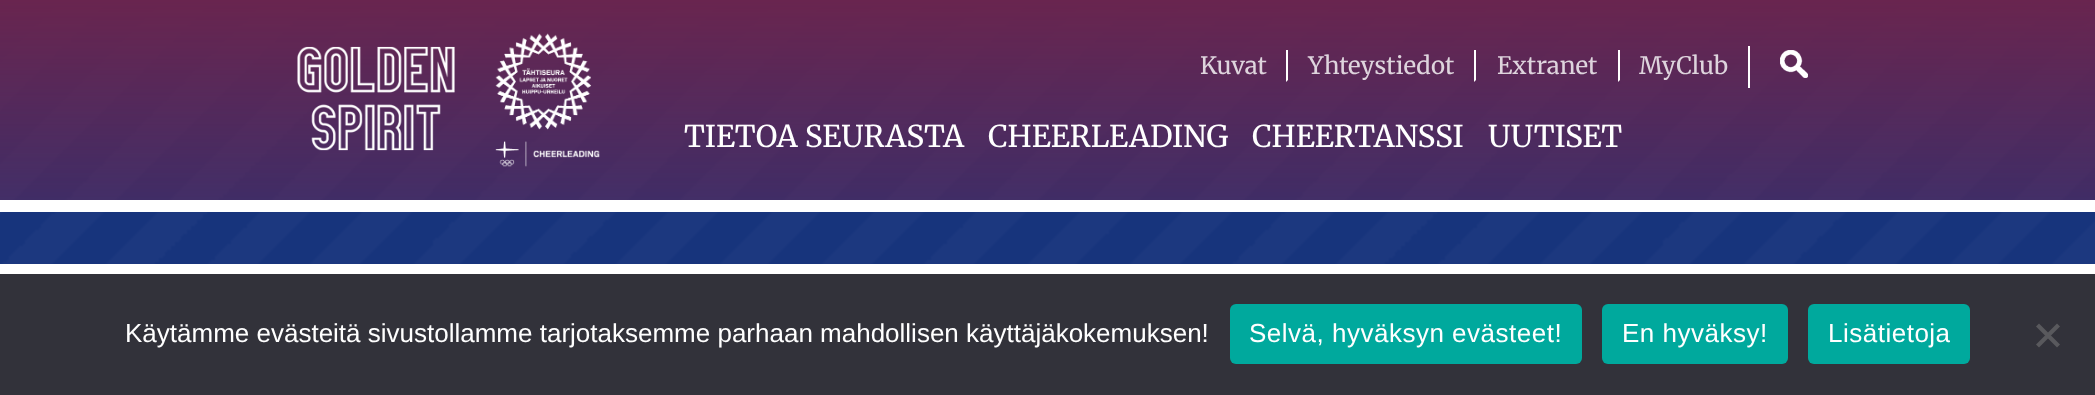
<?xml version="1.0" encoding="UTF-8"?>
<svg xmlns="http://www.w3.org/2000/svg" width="2095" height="395">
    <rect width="100%" height="100%" fill="#FFFFFF"/>
    <image x="0" y="0" width="2095" height="264" href="img_01.png"/>
    <rect x="0" y="200" width="2095" height="12" fill="#FFFFFF"/>
    <image x="297" y="46" width="158" height="105" href="img_02.png"/>
    <image x="495" y="33" width="105" height="134" href="img_03.png"/>
    <text x="1200" y="74" font-family="Merriweather" font-size="24" fill="#DED4DD">Kuvat</text>
    <text x="1308" y="74" font-family="Merriweather" font-size="24" fill="#DED4DD">Yhteystiedot</text>
    <path d="M 1286 82 V 50 H 1288 V 80 Z" fill="#FFFFFF"/>
    <text x="1497" y="74" font-family="Merriweather" font-size="24" fill="#DED4DD">Extranet</text>
    <path d="M 1474 82 V 50 H 1476 V 80 Z" fill="#FFFFFF"/>
    <text x="1639" y="74" font-family="Merriweather" font-size="24" fill="#DED4DD">MyClub</text>
    <path d="M 1618 82 V 50 H 1620 V 80 Z" fill="#FFFFFF"/>
    <rect x="1748" y="46" width="2" height="42" fill="#FFFFFF"/>
    <image x="1780" y="50" width="28" height="28" href="img_04.png"/>
    <text x="684" y="147" font-family="Merriweather" font-size="30" fill="#FFFFFF">TIETOA SEURASTA</text>
    <text x="988" y="147" font-family="Merriweather" font-size="30" fill="#FFFFFF">CHEERLEADING</text>
    <text x="1252" y="147" font-family="Merriweather" font-size="30" fill="#FFFFFF">CHEERTANSSI</text>
    <text x="1488" y="147" font-family="Merriweather" font-size="30" fill="#FFFFFF">UUTISET</text>
    <rect x="0" y="274" width="2095" height="121" fill="#32323A"/>
    <text x="125" y="342" font-family="Liberation Sans" font-size="26" fill="#FFFFFF">Käytämme evästeitä sivustollamme tarjotaksemme parhaan mahdollisen käyttäjäkokemuksen!</text>
    <rect x="1230" y="304" width="352" height="60" rx="6" fill="#00A99D"/>
    <text x="1249" y="342" font-family="Liberation Sans" font-size="26" letter-spacing="0.5" fill="#FFFFFF">Selvä, hyväksyn evästeet!</text>
    <rect x="1602" y="304" width="186" height="60" rx="6" fill="#00A99D"/>
    <text x="1622" y="342" font-family="Liberation Sans" font-size="26" letter-spacing="0.5" fill="#FFFFFF">En hyväksy!</text>
    <rect x="1808" y="304" width="162" height="60" rx="6" fill="#00A99D"/>
    <text x="1828" y="342" font-family="Liberation Sans" font-size="26" letter-spacing="0.5" fill="#FFFFFF">Lisätietoja</text>
    <path d="M 2057 323.5 L 2060 326.5 L 2039 347.5 L 2036 344.5 Z" fill="#59595D"/>
    <path d="M 2036 326.5 L 2039 323.5 L 2060 344.5 L 2057 347.5 Z" fill="#59595D"/>
</svg>
